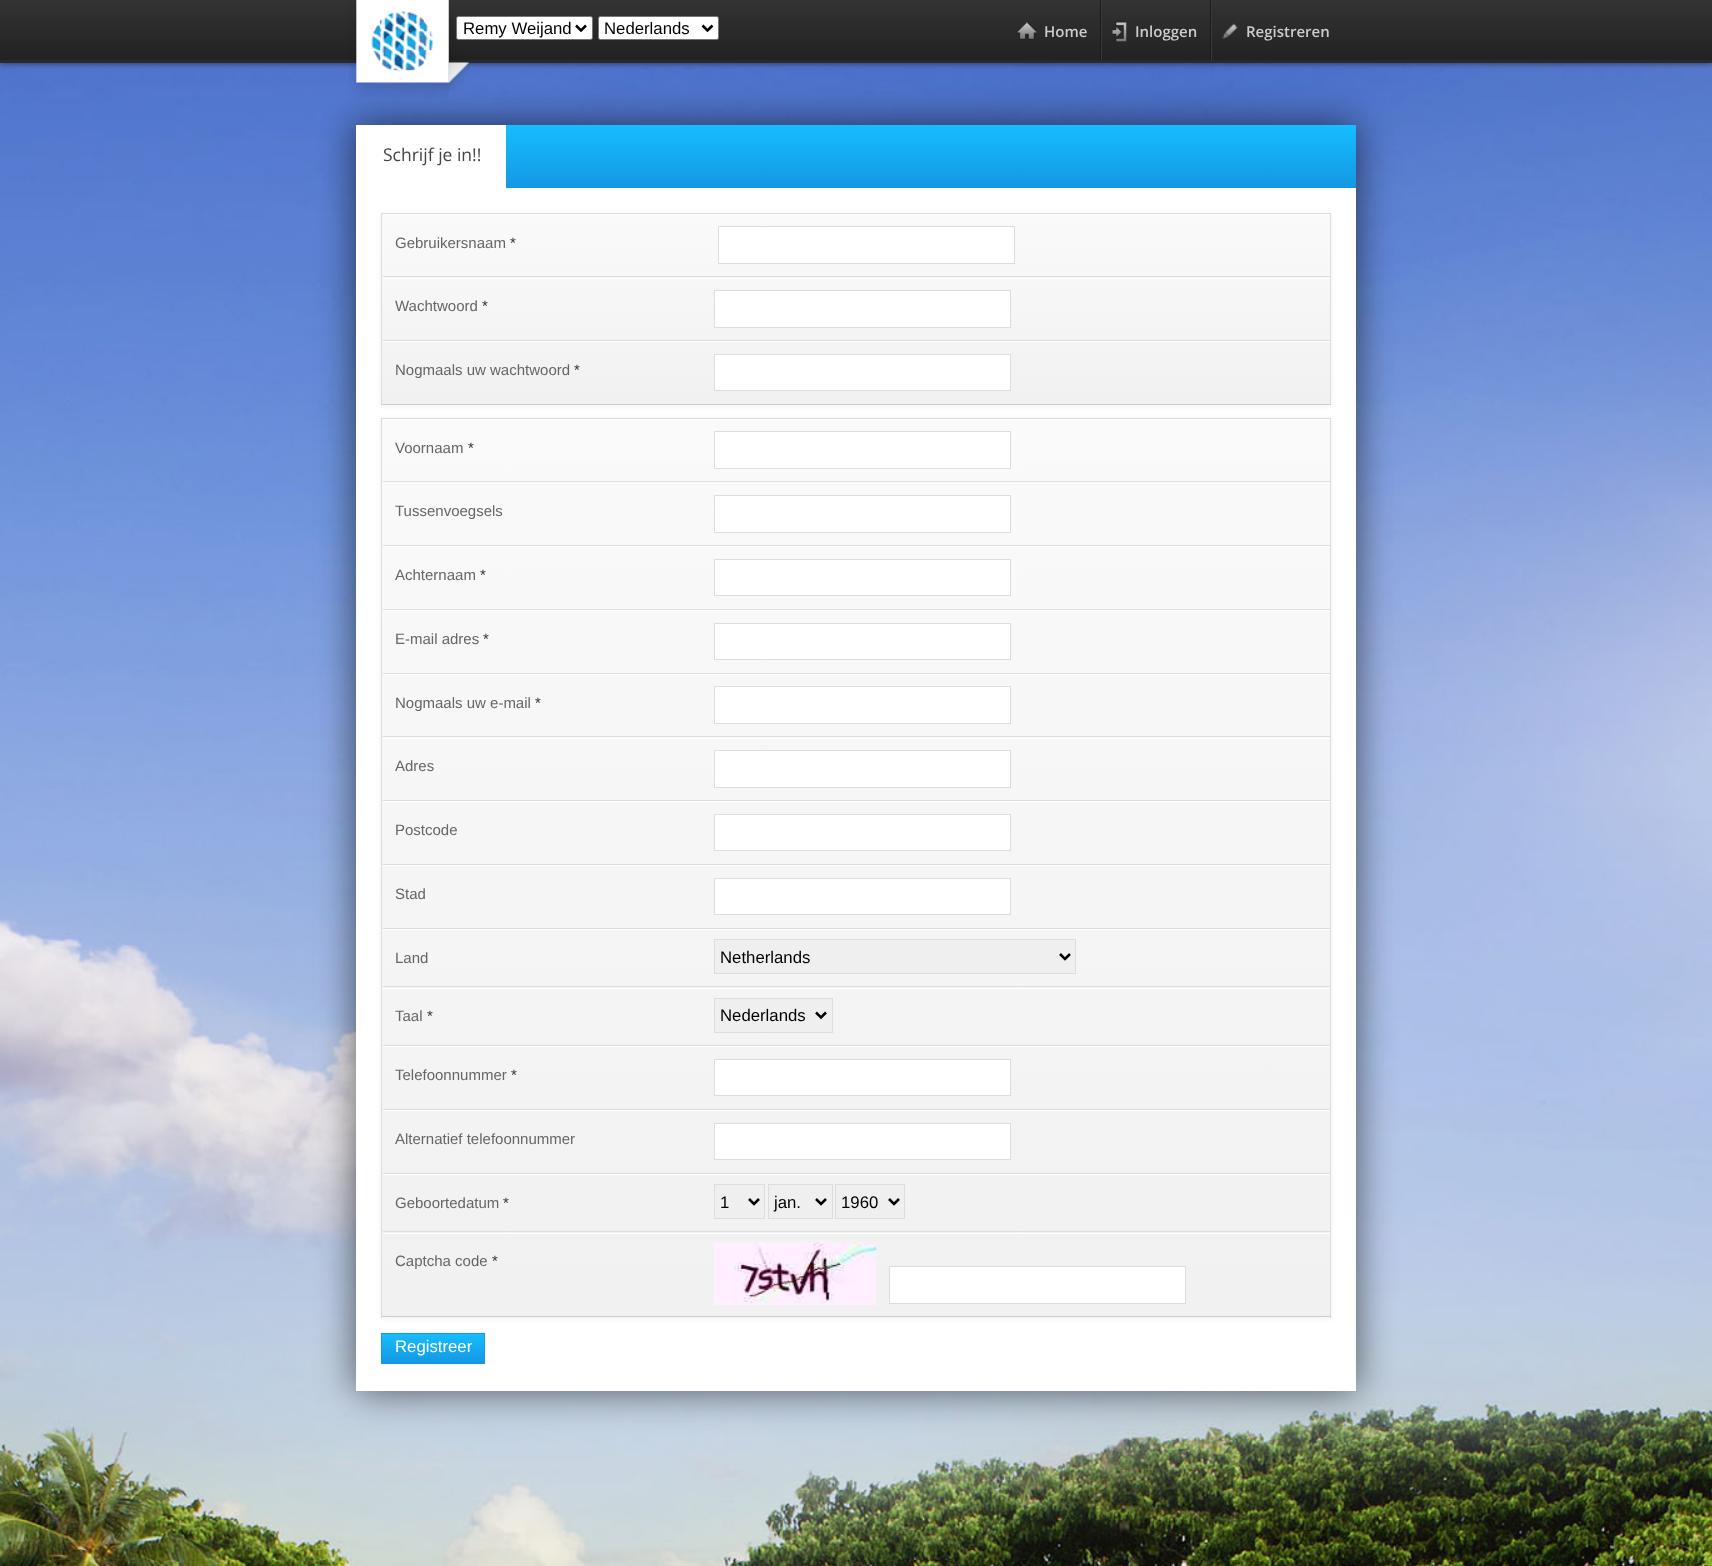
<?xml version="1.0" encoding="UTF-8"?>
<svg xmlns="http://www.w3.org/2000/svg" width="1712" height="1566">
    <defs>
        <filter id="blur1" x="-50%" y="-200%" width="200%" height="500%"><feGaussianBlur stdDeviation="3"/></filter>
        <linearGradient id="g1" gradientUnits="userSpaceOnUse" x1="856" y1="0" x2="856" y2="60"><stop offset="0" stop-color="#333333"/><stop offset="1" stop-color="#222222"/></linearGradient>
        <filter id="blur2" x="-50%" y="-200%" width="200%" height="500%"><feGaussianBlur stdDeviation="19"/></filter>
        <linearGradient id="g2" gradientUnits="userSpaceOnUse" x1="856" y1="125" x2="856" y2="188"><stop offset="0" stop-color="#16BDFF"/><stop offset="1" stop-color="#1498E2"/><stop offset="1" stop-color="#FFFFFF"/></linearGradient>
        <linearGradient id="g3" gradientUnits="userSpaceOnUse" x1="856" y1="214" x2="856" y2="404"><stop offset="0" stop-color="#FAFAFA"/><stop offset="1" stop-color="#F1F1F1"/></linearGradient>
        <linearGradient id="g4" gradientUnits="userSpaceOnUse" x1="856" y1="419" x2="856" y2="1316"><stop offset="0" stop-color="#FAFAFA"/><stop offset="1" stop-color="#F1F1F1"/></linearGradient>
        <filter id="blur3" x="-50%" y="-200%" width="200%" height="500%"><feGaussianBlur stdDeviation="1"/></filter>
        <linearGradient id="g5" gradientUnits="userSpaceOnUse" x1="433" y1="1334" x2="433" y2="1363"><stop offset="0" stop-color="#16BDFF"/><stop offset="1" stop-color="#1498E2"/></linearGradient>
    </defs>
    <rect width="100%" height="100%" fill="#FFFFFF"/>
    <image x="0" y="63" width="1712" height="1503" href="img_07.png"/>
    <rect x="0" y="0" width="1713" height="63" fill="#000000" fill-opacity="0.6" filter="url(#blur1)"/>
    <rect x="0" y="0" width="1712" height="60" fill="url(#g1)"/>
    <rect x="0" y="60" width="1712" height="3" fill="#2A2A2A"/>
    <rect x="456.5" y="16.5" width="136" height="23" rx="2" fill="#FFFFFF" stroke="#767676"/>
    <text x="463" y="34" font-family="Liberation Sans" font-size="16.75" fill="#000000">Remy Weijand</text>
    <rect x="356" y="125" width="1000" height="1266" fill="#000000" fill-opacity="0.6" filter="url(#blur2)"/>
    <image x="448" y="18" width="22" height="74" href="img_01.png"/>
    <image x="348" y="0" width="101" height="98" href="img_02.png"/>
    <image x="371" y="11" width="62" height="61" href="img_03.png"/>
    <path d="M 576 25.5 L 581 30.5 L 586 25.5" fill="none" stroke="#000000" stroke-width="2.5"/>
    <rect x="598.5" y="16.5" width="120" height="23" rx="2" fill="#FFFFFF" stroke="#767676"/>
    <path d="M 702.5 25.5 L 707.5 30.5 L 712.5 25.5" fill="none" stroke="#000000" stroke-width="2.5"/>
    <text x="604" y="34" font-family="Liberation Sans" font-size="16.75" fill="#000000">Nederlands</text>
    <rect x="1100" y="0" width="1" height="60" fill="#1A1A1A"/>
    <image x="1016" y="21" width="21" height="19" href="img_04.png"/>
    <text x="1044" y="37" font-family="Open Sans" font-size="15" font-weight="600" fill="#CCCCCC">Home</text>
    <rect x="1210" y="0" width="1" height="60" fill="#1A1A1A"/>
    <rect x="1101" y="0" width="1" height="60" fill="#3A3A3A"/>
    <image x="1111" y="21" width="16" height="21" href="img_05.png"/>
    <text x="1135" y="37" font-family="Open Sans" font-size="15" font-weight="600" fill="#CCCCCC">Inloggen</text>
    <rect x="1211" y="0" width="1" height="60" fill="#3A3A3A"/>
    <image x="1222" y="23" width="16" height="16" href="img_06.png"/>
    <text x="1246" y="37" font-family="Open Sans" font-size="15" font-weight="600" fill="#CCCCCC">Registreren</text>
    <rect x="356" y="188" width="1000" height="1203" fill="#FFFFFF"/>
    <rect x="506" y="125" width="850" height="63" fill="url(#g2)"/>
    <rect x="356" y="125" width="150" height="63" fill="#FFFFFF"/>
    <text x="383" y="161" font-family="Open Sans" font-size="17.5" fill="#444444">Schrijf je in!!</text>
    <rect x="381" y="214" width="950" height="192" fill="#F1F1F1" filter="url(#blur1)"/>
    <rect x="382" y="214" width="948" height="190" fill="url(#g3)"/>
    <rect x="383" y="214" width="947" height="1" fill="#FFFFFF"/>
    <rect x="381" y="213" width="950" height="1" fill="#DDDDDD"/>
    <rect x="1330" y="213" width="1" height="192" fill="#DDDDDD"/>
    <rect x="381" y="404" width="950" height="1" fill="#CCCCCC"/>
    <rect x="381" y="213" width="1" height="192" fill="#DDDDDD"/>
    <rect x="383" y="276" width="947" height="1" fill="#DDDDDD"/>
    <text x="395" y="248" font-family="Liberation Sans" font-size="15" fill="#666666">Gebruikersnaam</text>
    <text x="510" y="248" font-family="Liberation Sans" font-size="15" fill="#333333">*</text>
    <rect x="718.5" y="226.5" width="296" height="37" fill="#FFFFFF" stroke="#DDDDDD"/>
    <rect x="383" y="278" width="947" height="1" fill="#FFFFFF"/>
    <rect x="383" y="340" width="947" height="1" fill="#DDDDDD"/>
    <text x="395" y="311" font-family="Liberation Sans" font-size="15" fill="#666666">Wachtwoord</text>
    <text x="482" y="311" font-family="Liberation Sans" font-size="15" fill="#333333">*</text>
    <rect x="714.5" y="290.5" width="296" height="37" fill="#FFFFFF" stroke="#DDDDDD"/>
    <rect x="383" y="341" width="947" height="1" fill="#FFFFFF"/>
    <text x="395" y="375" font-family="Liberation Sans" font-size="15" fill="#666666">Nogmaals uw wachtwoord</text>
    <text x="574" y="375" font-family="Liberation Sans" font-size="15" fill="#333333">*</text>
    <rect x="714.5" y="354.5" width="296" height="36" fill="#FFFFFF" stroke="#DDDDDD"/>
    <rect x="381" y="419" width="950" height="900" fill="#F1F1F1" filter="url(#blur1)"/>
    <rect x="382" y="419" width="948" height="897" fill="url(#g4)"/>
    <rect x="383" y="419" width="947" height="1" fill="#FFFFFF"/>
    <rect x="381" y="418" width="950" height="1" fill="#DDDDDD"/>
    <rect x="1330" y="418" width="1" height="900" fill="#DDDDDD"/>
    <rect x="381" y="1316" width="950" height="1" fill="#CCCCCC"/>
    <rect x="381" y="418" width="1" height="900" fill="#DDDDDD"/>
    <rect x="383" y="481" width="947" height="1" fill="#DDDDDD"/>
    <text x="395" y="453" font-family="Liberation Sans" font-size="15" fill="#666666">Voornaam</text>
    <text x="468" y="453" font-family="Liberation Sans" font-size="15" fill="#333333">*</text>
    <rect x="714.5" y="431.5" width="296" height="37" fill="#FFFFFF" stroke="#DDDDDD"/>
    <rect x="383" y="483" width="947" height="1" fill="#FFFFFF"/>
    <rect x="383" y="545" width="947" height="1" fill="#DDDDDD"/>
    <text x="395" y="516" font-family="Liberation Sans" font-size="15" fill="#666666">Tussenvoegsels</text>
    <rect x="714.5" y="495.5" width="296" height="37" fill="#FFFFFF" stroke="#DDDDDD"/>
    <rect x="383" y="546" width="947" height="1" fill="#FFFFFF"/>
    <rect x="383" y="609" width="947" height="1" fill="#DDDDDD"/>
    <text x="395" y="580" font-family="Liberation Sans" font-size="15" fill="#666666">Achternaam</text>
    <text x="480" y="580" font-family="Liberation Sans" font-size="15" fill="#333333">*</text>
    <rect x="714.5" y="559.5" width="296" height="36" fill="#FFFFFF" stroke="#DDDDDD"/>
    <rect x="383" y="610" width="947" height="1" fill="#FFFFFF"/>
    <rect x="383" y="673" width="947" height="1" fill="#DDDDDD"/>
    <text x="395" y="644" font-family="Liberation Sans" font-size="15" fill="#666666">E-mail adres</text>
    <text x="483" y="644" font-family="Liberation Sans" font-size="15" fill="#333333">*</text>
    <rect x="714.5" y="623.5" width="296" height="36" fill="#FFFFFF" stroke="#DDDDDD"/>
    <rect x="383" y="674" width="947" height="1" fill="#FFFFFF"/>
    <rect x="383" y="736" width="947" height="1" fill="#DDDDDD"/>
    <text x="395" y="708" font-family="Liberation Sans" font-size="15" fill="#666666">Nogmaals uw e-mail</text>
    <text x="535" y="708" font-family="Liberation Sans" font-size="15" fill="#333333">*</text>
    <rect x="714.5" y="686.5" width="296" height="37" fill="#FFFFFF" stroke="#DDDDDD"/>
    <rect x="383" y="738" width="947" height="1" fill="#FFFFFF"/>
    <rect x="383" y="800" width="947" height="1" fill="#DDDDDD"/>
    <text x="395" y="771" font-family="Liberation Sans" font-size="15" fill="#666666">Adres</text>
    <rect x="714.5" y="750.5" width="296" height="37" fill="#FFFFFF" stroke="#DDDDDD"/>
    <rect x="383" y="801" width="947" height="1" fill="#FFFFFF"/>
    <rect x="383" y="864" width="947" height="1" fill="#DDDDDD"/>
    <text x="395" y="835" font-family="Liberation Sans" font-size="15" fill="#666666">Postcode</text>
    <rect x="714.5" y="814.5" width="296" height="36" fill="#FFFFFF" stroke="#DDDDDD"/>
    <rect x="383" y="865" width="947" height="1" fill="#FFFFFF"/>
    <rect x="383" y="928" width="947" height="1" fill="#DDDDDD"/>
    <text x="395" y="899" font-family="Liberation Sans" font-size="15" fill="#666666">Stad</text>
    <rect x="714.5" y="878.5" width="296" height="36" fill="#FFFFFF" stroke="#DDDDDD"/>
    <rect x="383" y="929" width="947" height="1" fill="#FFFFFF"/>
    <rect x="383" y="986" width="947" height="1" fill="#DDDDDD"/>
    <text x="395" y="963" font-family="Liberation Sans" font-size="15" fill="#666666">Land</text>
    <rect x="714.5" y="939.5" width="361" height="34" fill="#EFEFEF" stroke="#DDDDDD"/>
    <path d="M 1060 954 L 1065 959 L 1070 954" fill="none" stroke="#000000" stroke-width="2.5"/>
    <text x="720" y="963" font-family="Liberation Sans" font-size="16.75" fill="#000000">Netherlands</text>
    <rect x="383" y="988" width="947" height="1" fill="#FFFFFF"/>
    <rect x="383" y="1045" width="947" height="1" fill="#DDDDDD"/>
    <text x="395" y="1021" font-family="Liberation Sans" font-size="15" fill="#666666">Taal</text>
    <text x="427" y="1021" font-family="Liberation Sans" font-size="15" fill="#333333">*</text>
    <rect x="714.5" y="998.5" width="118" height="34" fill="#EFEFEF" stroke="#DDDDDD"/>
    <path d="M 816 1012.5 L 821 1017.5 L 826 1012.5" fill="none" stroke="#000000" stroke-width="2.5"/>
    <text x="720" y="1021" font-family="Liberation Sans" font-size="16.75" fill="#000000">Nederlands</text>
    <rect x="383" y="1046" width="947" height="1" fill="#FFFFFF"/>
    <rect x="383" y="1109" width="947" height="1" fill="#DDDDDD"/>
    <text x="395" y="1080" font-family="Liberation Sans" font-size="15" fill="#666666">Telefoonnummer</text>
    <text x="511" y="1080" font-family="Liberation Sans" font-size="15" fill="#333333">*</text>
    <rect x="714.5" y="1059.5" width="296" height="36" fill="#FFFFFF" stroke="#DDDDDD"/>
    <rect x="383" y="1110" width="947" height="1" fill="#FFFFFF"/>
    <rect x="383" y="1173" width="947" height="1" fill="#DDDDDD"/>
    <text x="395" y="1144" font-family="Liberation Sans" font-size="15" fill="#666666">Alternatief telefoonnummer</text>
    <rect x="714.5" y="1123.5" width="296" height="36" fill="#FFFFFF" stroke="#DDDDDD"/>
    <rect x="383" y="1174" width="947" height="1" fill="#FFFFFF"/>
    <rect x="383" y="1231" width="947" height="1" fill="#DDDDDD"/>
    <text x="395" y="1208" font-family="Liberation Sans" font-size="15" fill="#666666">Geboortedatum</text>
    <text x="503" y="1208" font-family="Liberation Sans" font-size="15" fill="#333333">*</text>
    <rect x="714.5" y="1184.5" width="50" height="34" fill="#EFEFEF" stroke="#DDDDDD"/>
    <path d="M 749 1199 L 754 1204 L 759 1199" fill="none" stroke="#000000" stroke-width="2.5"/>
    <text x="720" y="1208" font-family="Liberation Sans" font-size="16.75" fill="#000000">1</text>
    <rect x="768.5" y="1184.5" width="64" height="34" fill="#EFEFEF" stroke="#DDDDDD"/>
    <path d="M 816 1199 L 821 1204 L 826 1199" fill="none" stroke="#000000" stroke-width="2.5"/>
    <text x="774" y="1208" font-family="Liberation Sans" font-size="16.75" fill="#000000">jan.</text>
    <rect x="835.5" y="1184.5" width="69" height="34" fill="#EFEFEF" stroke="#DDDDDD"/>
    <path d="M 889 1199 L 894 1204 L 899 1199" fill="none" stroke="#000000" stroke-width="2.5"/>
    <text x="841" y="1208" font-family="Liberation Sans" font-size="16.75" fill="#000000">1960</text>
    <rect x="383" y="1233" width="947" height="1" fill="#FFFFFF"/>
    <text x="395" y="1266" font-family="Liberation Sans" font-size="15" fill="#666666">Captcha code</text>
    <text x="492" y="1266" font-family="Liberation Sans" font-size="15" fill="#333333">*</text>
    <image x="714" y="1242" width="163" height="63" href="img_08.png"/>
    <rect x="889.5" y="1266.5" width="296" height="37" fill="#FFFFFF" stroke="#DDDDDD"/>
    <rect x="381" y="1333" width="104" height="31" fill="#000000" fill-opacity="0.1" filter="url(#blur3)"/>
    <rect x="382" y="1334" width="102" height="29" fill="url(#g5)"/>
    <rect x="381.5" y="1333.5" width="103" height="30" fill="none" stroke="#1498E2"/>
    <text x="395" y="1352" font-family="Liberation Sans" font-size="16.75" fill="#FFFFFF">Registreer</text>
</svg>
